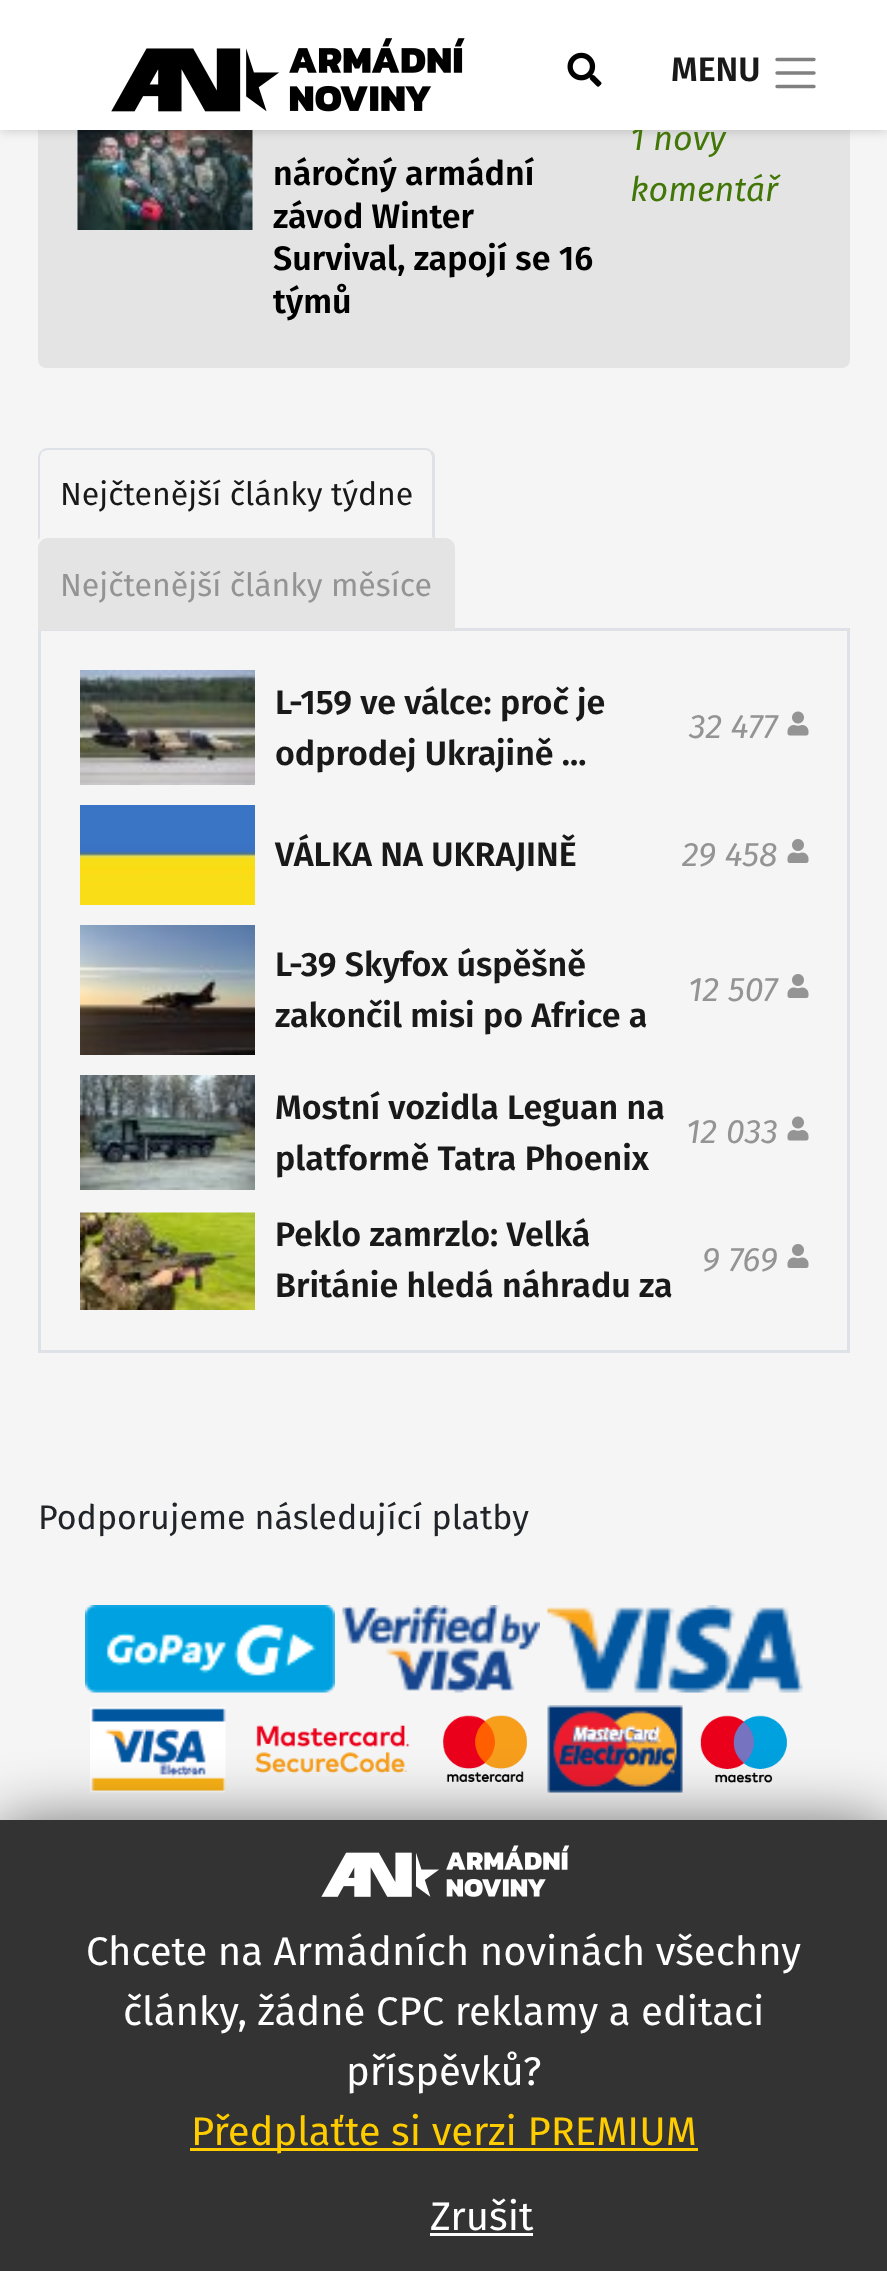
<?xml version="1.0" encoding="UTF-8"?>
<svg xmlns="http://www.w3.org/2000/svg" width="887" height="2271">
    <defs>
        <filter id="blur1" x="-50%" y="-200%" width="200%" height="500%"><feGaussianBlur stdDeviation="6"/></filter>
        <filter id="blur2" x="-50%" y="-200%" width="200%" height="500%"><feGaussianBlur stdDeviation="34"/></filter>
    </defs>
    <rect width="100%" height="100%" fill="#F5F5F5"/>
    <rect x="38" y="-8" width="812" height="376" rx="8" fill="#E4E4E4"/>
    <image x="77" y="130" width="176" height="100" href="img_03.png"/>
    <rect x="0" y="0" width="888" height="130" fill="#000000" fill-opacity="0.2" filter="url(#blur1)"/>
    <text x="630" y="150" font-family="Fira Sans" font-size="34" font-style="italic" fill="#427606">1 nový</text>
    <rect x="0" y="0" width="887" height="130" fill="#FFFFFF"/>
    <image x="111" y="38" width="354" height="74" href="img_01.png"/>
    <image x="567" y="52" width="35" height="35" href="img_02.png"/>
    <text x="671" y="81" font-family="Fira Sans" font-size="34" font-weight="600" fill="#1A1919">MENU</text>
    <path d="M 777 59.5 H 814 M 777 73 H 814 M 777 86.5 H 814" fill="none" stroke="#808080" stroke-width="3.4" stroke-linecap="round"/>
    <text font-family="Fira Sans" font-size="34" font-weight="600" fill="#000000">
        <tspan x="273" y="185">náročný armádní</tspan>
        <tspan x="273" y="228">závod Winter</tspan>
        <tspan x="273" y="270">Survival, zapojí se 16</tspan>
        <tspan x="273" y="313">týmů</tspan>
    </text>
    <text x="630" y="201" font-family="Fira Sans" font-size="34" font-style="italic" fill="#427606">komentář</text>
    <path d="M 48 448 C 45 448 42 449 41 451 L 42 452 C 44 451 46 450 48 450 H 425 C 427 450 429 451 430 452 L 432 451 C 430 449 428 448 425 448 Z" fill="#DEE2E6"/>
    <path d="M 432 451 C 434 452 435 455 435 458 V 540 L 432 537 V 458 C 432 456 431 454 430 452 Z" fill="#DEE2E6"/>
    <path d="M 435 540 L 432 537 V 538 H 40 L 38 540 Z" fill="#F5F5F5"/>
    <path d="M 41 451 C 39 452 38 455 38 458 V 540 L 40 538 V 458 C 40 456 41 454 42 452 Z" fill="#DEE2E6"/>
    <text x="60" y="505" font-family="Fira Sans" font-size="32" fill="#1A1919">Nejčtenější články týdne</text>
    <rect x="39.5" y="629.5" width="809" height="722" fill="none" stroke="#DEE2E6" stroke-width="3"/>
    <path d="M 48 538 H 445 C 450.5 538 455 542.5 455 548 V 630 H 38 V 548 C 38 542.5 42.5 538 48 538 Z" fill="#E4E4E4"/>
    <text x="60" y="596" font-family="Fira Sans" font-size="32" fill="#949494">Nejčtenější články měsíce</text>
    <image x="80" y="670" width="175" height="115" href="img_04.png"/>
    <text font-family="Fira Sans" font-size="34" font-weight="600" fill="#1A1919">
        <tspan x="275" y="714">L-159 ve válce: proč je</tspan>
        <tspan x="275" y="765">odprodej Ukrajině ...</tspan>
    </text>
    <text x="689" y="738" font-family="Fira Sans" font-size="34" font-style="italic" fill="#949494">32 477</text>
    <image x="787" y="711" width="22" height="25" href="img_05.png"/>
    <image x="80" y="805" width="175" height="100" href="img_06.png"/>
    <text x="275" y="866" font-family="Fira Sans" font-size="34" font-weight="600" fill="#1A1919">VÁLKA NA UKRAJINĚ</text>
    <text x="682" y="866" font-family="Fira Sans" font-size="34" font-style="italic" fill="#949494">29 458</text>
    <image x="787" y="839" width="22" height="24" href="img_07.png"/>
    <image x="80" y="925" width="175" height="130" href="img_08.png"/>
    <text font-family="Fira Sans" font-size="34" font-weight="600" fill="#1A1919">
        <tspan x="275" y="976">L-39 Skyfox úspěšně</tspan>
        <tspan x="275" y="1027">zakončil misi po Africe a</tspan>
    </text>
    <text x="688" y="1001" font-family="Fira Sans" font-size="34" font-style="italic" fill="#949494">12 507</text>
    <image x="787" y="974" width="22" height="24" href="img_07.png"/>
    <image x="80" y="1075" width="175" height="115" href="img_09.png"/>
    <text font-family="Fira Sans" font-size="34" font-weight="600" fill="#1A1919">
        <tspan x="275" y="1119">Mostní vozidla Leguan na</tspan>
        <tspan x="275" y="1170">platformě Tatra Phoenix</tspan>
    </text>
    <text x="686" y="1143" font-family="Fira Sans" font-size="34" font-style="italic" fill="#949494">12 033</text>
    <image x="787" y="1116" width="22" height="25" href="img_05.png"/>
    <image x="80" y="1212" width="175" height="98" href="img_10.png"/>
    <text font-family="Fira Sans" font-size="34" font-weight="600" fill="#1A1919">
        <tspan x="275" y="1246">Peklo zamrzlo: Velká</tspan>
        <tspan x="275" y="1297">Británie hledá náhradu za</tspan>
    </text>
    <text x="702" y="1271" font-family="Fira Sans" font-size="34" font-style="italic" fill="#949494">9 769</text>
    <image x="787" y="1244" width="22" height="24" href="img_07.png"/>
    <text x="38" y="1529" font-family="Fira Sans" font-size="34" fill="#212529">Podporujeme následující platby</text>
    <image x="85" y="1605" width="250" height="88" href="img_11.png"/>
    <image x="342" y="1605" width="198" height="88" href="img_12.png"/>
    <image x="547" y="1605" width="256" height="88" href="img_13.png"/>
    <image x="90" y="1707" width="136" height="86" href="img_14.png"/>
    <image x="255" y="1725" width="155" height="49" href="img_15.png"/>
    <image x="443" y="1715" width="84" height="67" href="img_16.png"/>
    <image x="547" y="1705" width="136" height="88" href="img_17.png"/>
    <image x="700" y="1715" width="87" height="68" href="img_18.png"/>
    <rect x="0" y="1830" width="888" height="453" fill="#000000" fill-opacity="0.7" filter="url(#blur2)"/>
    <rect x="0" y="1820" width="887" height="451" fill="#333333"/>
    <image x="321" y="1845" width="249" height="52" href="img_19.png"/>
    <text x="86" y="1965" font-family="Fira Sans" font-size="40" fill="#FFFFFF">Chcete na Armádních novinách všechny</text>
    <text x="123" y="2025" font-family="Fira Sans" font-size="40" fill="#FFFFFF">články, žádné CPC reklamy a editaci</text>
    <text x="346" y="2085" font-family="Fira Sans" font-size="40" fill="#FFFFFF">příspěvků?</text>
    <rect x="190" y="2148" width="508" height="3" fill="#FFCC00"/>
    <text x="191" y="2145" font-family="Fira Sans" font-size="40" fill="#FFCC00">Předplaťte si verzi PREMIUM</text>
    <text x="430" y="2230" font-family="Fira Sans" font-size="40" fill="#FFFFFF">Zrušit</text>
    <rect x="430" y="2233" width="103" height="3" fill="#FFFFFF"/>
</svg>
